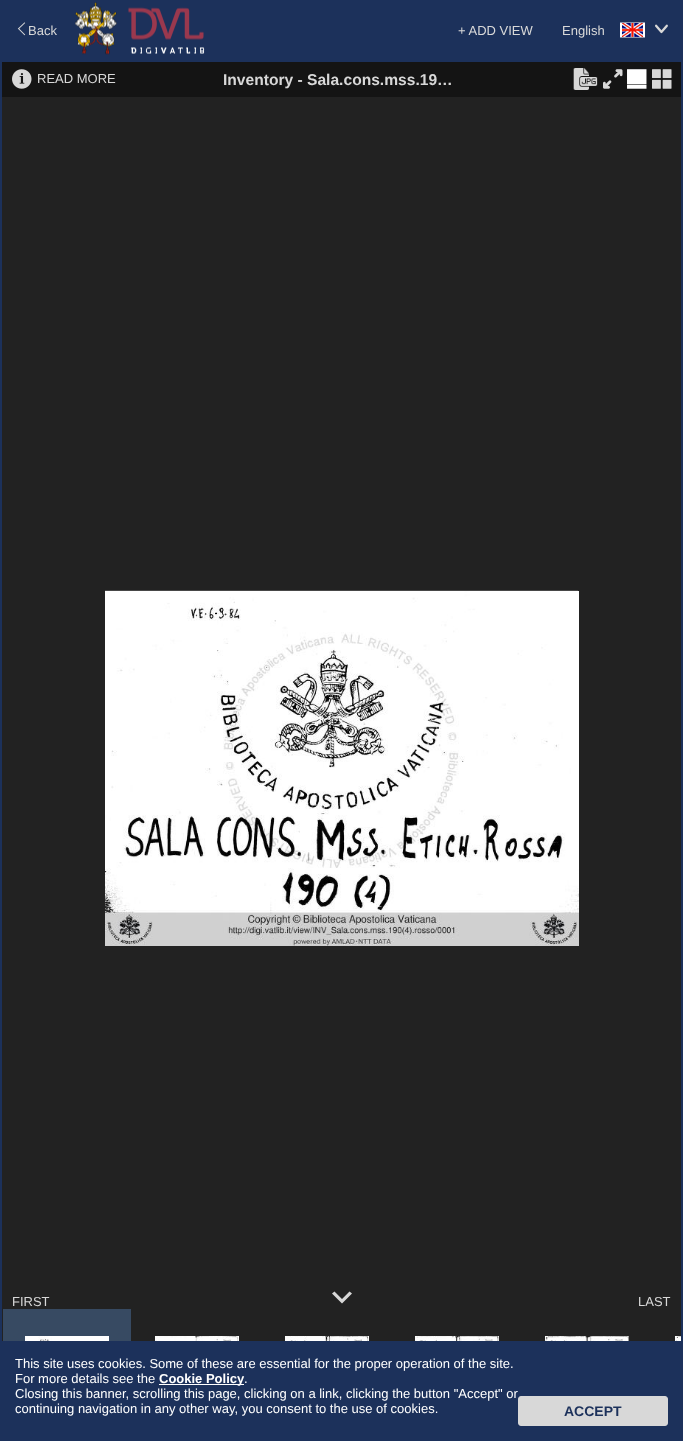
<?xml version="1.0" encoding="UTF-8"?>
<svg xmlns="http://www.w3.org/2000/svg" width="683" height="1441">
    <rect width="100%" height="100%" fill="#1C315B"/>
    <image x="17" y="22" width="9" height="14" href="img_01.png"/>
    <text x="28" y="35" font-family="Liberation Sans" font-size="13" fill="#D8D8D8">Back</text>
    <image x="75" y="2" width="130" height="53" href="img_02.png"/>
    <text x="458" y="35" font-family="Liberation Sans" font-size="13" fill="#D8D8D8">+ ADD VIEW</text>
    <image x="620" y="22" width="25" height="16" href="img_03.png"/>
    <text x="562" y="35" font-family="Liberation Sans" font-size="13" fill="#D8D8D8">English</text>
    <image x="655" y="24" width="13" height="10" href="img_04.png"/>
    <rect x="2" y="62" width="679" height="35" fill="#141414"/>
    <image x="12" y="69" width="20" height="20" href="img_05.png"/>
    <text x="37" y="83" font-family="Liberation Sans" font-size="13" fill="#D8D8D8">READ MORE</text>
    <text x="223" y="85" font-family="Liberation Sans" font-size="15.6" font-weight="700" fill="#D8D8D8">Inventory - Sala.cons.mss.19…</text>
    <image x="573" y="68" width="25" height="22" href="img_06.png"/>
    <image x="603" y="69" width="20" height="20" href="img_07.png"/>
    <image x="627" y="69" width="20" height="20" href="img_08.png"/>
    <image x="652" y="69" width="20" height="20" href="img_09.png"/>
    <rect x="2" y="97" width="679" height="1244" fill="#222222"/>
    <image x="105" y="590" width="474" height="356" href="img_10.png"/>
    <text x="12" y="1306" font-family="Liberation Sans" font-size="13" fill="#D8D8D8">FIRST</text>
    <path d="M 349.5 1291.5 L 342 1299 L 334.5 1291.5 L 332 1293.5 L 342 1303.5 L 352 1293.5 Z" fill="#D8D8D8"/>
    <text x="638" y="1306" font-family="Liberation Sans" font-size="13" fill="#D8D8D8">LAST</text>
    <rect x="3" y="1309" width="128" height="32" fill="#374A62"/>
    <image x="25" y="1336" width="84" height="5" href="img_11.png"/>
    <image x="155" y="1336" width="84" height="5" href="img_12.png"/>
    <image x="285" y="1336" width="84" height="5" href="img_13.png"/>
    <image x="415" y="1336" width="84" height="5" href="img_14.png"/>
    <image x="545" y="1336" width="84" height="5" href="img_15.png"/>
    <image x="675" y="1336" width="6" height="5" href="img_16.png"/>
    <text font-family="Liberation Sans" font-size="13" fill="#FFFFFF">
        <tspan x="15" y="1368">This site uses cookies. Some of these are essential for the proper operation of the site.</tspan>
        <tspan x="15" y="1383">For more details see the</tspan>
    </text>
    <rect x="159" y="1384" width="85" height="1" fill="#FFFFFF"/>
    <text x="159" y="1383" font-family="Liberation Sans" font-size="13" font-weight="700" fill="#FFFFFF">Cookie Policy</text>
    <text x="244" y="1383" font-family="Liberation Sans" font-size="13" fill="#FFFFFF">.</text>
    <text font-family="Liberation Sans" font-size="13" fill="#FFFFFF">
        <tspan x="15" y="1398">Closing this banner, scrolling this page, clicking on a link, clicking the button "Accept" or</tspan>
        <tspan x="15" y="1413">continuing navigation in any other way, you consent to the use of cookies.</tspan>
    </text>
    <rect x="518.5" y="1396.5" width="149" height="29" rx="2.5" fill="#D8D8D8" stroke="#D8D8D8"/>
    <text x="564" y="1416" font-family="Liberation Sans" font-size="14" font-weight="700" fill="#1C315B">ACCEPT</text>
</svg>
